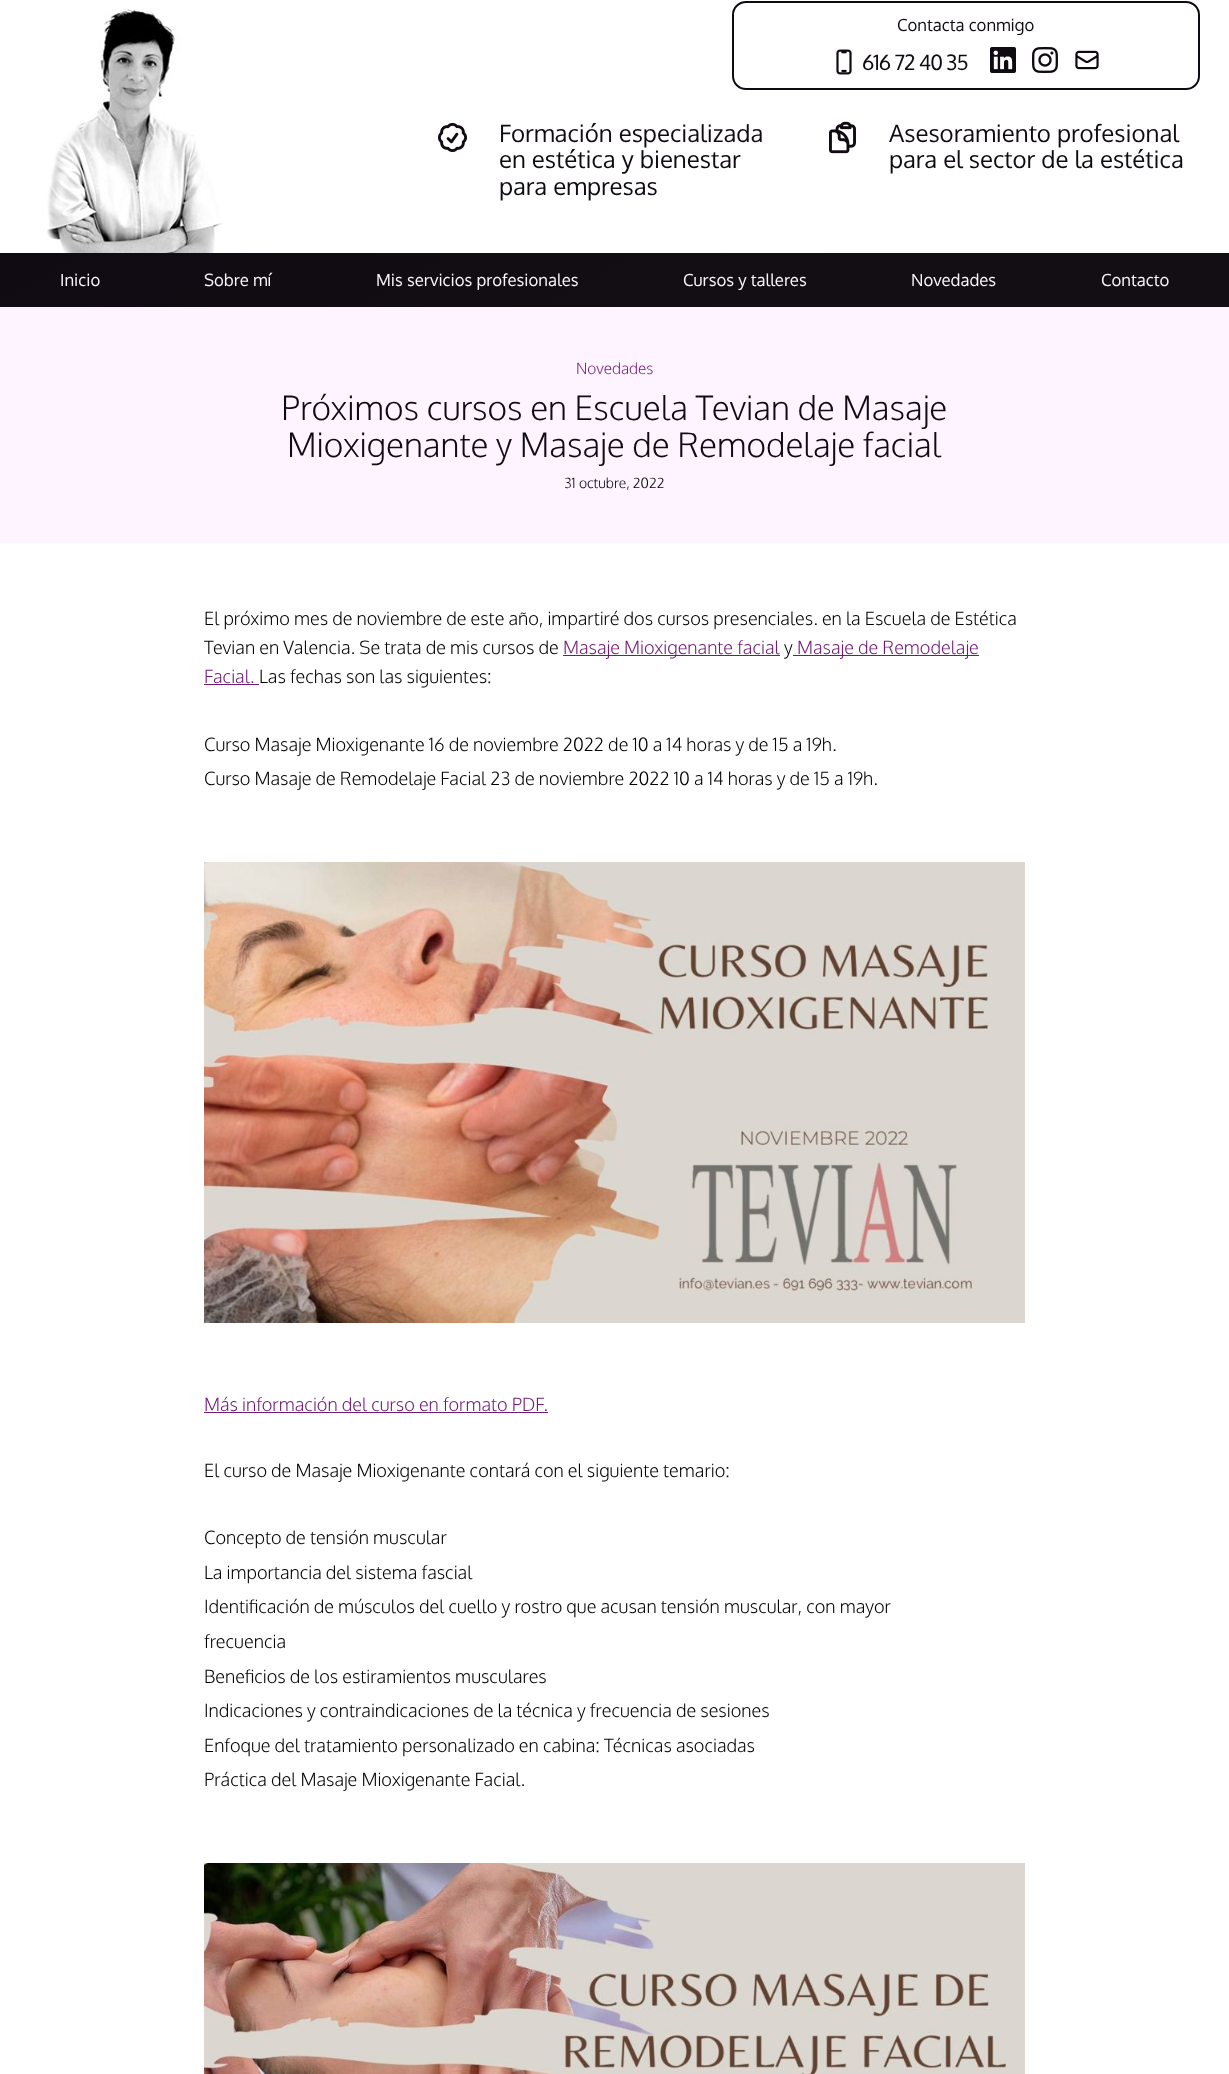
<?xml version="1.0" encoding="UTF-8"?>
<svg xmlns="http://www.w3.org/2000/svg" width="1229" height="2074">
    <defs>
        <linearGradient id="g1" gradientUnits="userSpaceOnUse" x1="449" y1="-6.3" x2="780" y2="566"><stop offset="0" stop-color="#100B12"/><stop offset="0.66" stop-color="#120E13"/></linearGradient>
    </defs>
    <rect width="100%" height="100%" fill="#FFFFFF"/>
    <image x="46" y="9" width="177" height="244" href="img_01.png"/>
    <rect x="733" y="2" width="466" height="87" rx="13" fill="none" stroke="#100B12" stroke-width="2"/>
    <text x="897" y="31" font-family="Oxygen" font-size="16.75" fill="#100B12">Contacta conmigo</text>
    <image x="836" y="49" width="16" height="26" href="img_02.png"/>
    <text x="862" y="70" font-family="Oxygen" font-size="21" letter-spacing="-1" fill="#100B12">616 72 40 35</text>
    <image x="990" y="47" width="26" height="26" href="img_03.png"/>
    <image x="1032" y="47" width="26" height="26" href="img_04.png"/>
    <image x="1075" y="50" width="24" height="20" href="img_05.png"/>
    <image x="437" y="122" width="31" height="31" href="img_06.png"/>
    <text font-family="Oxygen" font-size="24" fill="#100B12">
        <tspan x="499" y="142">Formación especializada</tspan>
        <tspan x="499" y="168">en estética y bienestar</tspan>
        <tspan x="499" y="195">para empresas</tspan>
    </text>
    <image x="829" y="121" width="27" height="33" href="img_07.png"/>
    <text font-family="Oxygen" font-size="24" fill="#100B12">
        <tspan x="889" y="142">Asesoramiento profesional</tspan>
        <tspan x="889" y="168">para el sector de la estética</tspan>
    </text>
    <rect x="0" y="253" width="1229" height="54" fill="url(#g1)"/>
    <text x="60" y="286" font-family="Oxygen" font-size="16.75" fill="#FDF4FF">Inicio</text>
    <text x="204" y="286" font-family="Oxygen" font-size="16.75" fill="#FDF4FF">Sobre mí</text>
    <text x="376" y="286" font-family="Oxygen" font-size="16.75" fill="#FDF4FF">Mis servicios profesionales</text>
    <text x="683" y="286" font-family="Oxygen" font-size="16.75" fill="#FDF4FF">Cursos y talleres</text>
    <text x="911" y="286" font-family="Oxygen" font-size="16.75" fill="#FDF4FF">Novedades</text>
    <text x="1101" y="286" font-family="Oxygen" font-size="16.75" fill="#FDF4FF">Contacto</text>
    <rect x="0" y="307" width="1229" height="236" fill="#FDF4FF"/>
    <text x="576" y="374" font-family="Oxygen" font-size="15.5" font-weight="300" fill="#701A75">Novedades</text>
    <text x="281" y="420" font-family="Oxygen" font-size="33.6" font-weight="300" fill="#100B12">Próximos cursos en Escuela Tevian de Masaje</text>
    <text x="287" y="457" font-family="Oxygen" font-size="33.6" font-weight="300" fill="#100B12">Mioxigenante y Masaje de Remodelaje facial</text>
    <text x="564" y="488" font-family="Oxygen" font-size="14" font-weight="300" fill="#000000">31 octubre, 2022</text>
    <text font-family="Oxygen" font-size="18.2" font-weight="300" fill="#000000">
        <tspan x="204" y="625">El próximo mes de noviembre de este año, impartiré dos cursos presenciales. en la Escuela de Estética</tspan>
        <tspan x="204" y="654">Tevian en Valencia. Se trata de mis cursos de</tspan>
    </text>
    <rect x="563" y="655" width="217" height="1" fill="#701A75"/>
    <text x="563" y="654" font-family="Oxygen" font-size="18.2" font-weight="300" fill="#701A75">Masaje Mioxigenante facial</text>
    <text x="784" y="654" font-family="Oxygen" font-size="18.2" font-weight="300" fill="#000000">y</text>
    <rect x="793" y="655" width="186" height="1" fill="#701A75"/>
    <text x="797" y="654" font-family="Oxygen" font-size="18.2" font-weight="300" fill="#701A75">Masaje de Remodelaje</text>
    <text x="204" y="683" font-family="Oxygen" font-size="18.2" font-weight="300" fill="#701A75">Facial.</text>
    <rect x="204" y="684" width="55" height="1" fill="#701A75"/>
    <text x="259" y="683" font-family="Oxygen" font-size="18.2" font-weight="300" fill="#000000">Las fechas son las siguientes:</text>
    <text font-family="Oxygen" font-size="18.2" font-weight="300" fill="#000000">
        <tspan x="204" y="751">Curso Masaje Mioxigenante 16 de noviembre 2022 de 10 a 14 horas y de 15 a 19h.</tspan>
        <tspan x="204" y="785">Curso Masaje de Remodelaje Facial 23 de noviembre 2022 10 a 14 horas y de 15 a 19h.</tspan>
    </text>
    <image x="204" y="862" width="821" height="461" href="img_08.png"/>
    <text x="204" y="1411" font-family="Oxygen" font-size="18.2" font-weight="300" fill="#701A75">Más información del curso en formato PDF.</text>
    <rect x="204" y="1412" width="344" height="1" fill="#701A75"/>
    <text x="204" y="1477" font-family="Oxygen" font-size="18.2" font-weight="300" fill="#000000">El curso de Masaje Mioxigenante contará con el siguiente temario:</text>
    <text font-family="Oxygen" font-size="18.2" font-weight="300" fill="#000000">
        <tspan x="204" y="1544">Concepto de tensión muscular</tspan>
        <tspan x="204" y="1579">La importancia del sistema fascial</tspan>
        <tspan x="204" y="1613">Identificación de músculos del cuello y rostro que acusan tensión muscular, con mayor</tspan>
        <tspan x="204" y="1648">frecuencia</tspan>
        <tspan x="204" y="1683">Beneficios de los estiramientos musculares</tspan>
        <tspan x="204" y="1717">Indicaciones y contraindicaciones de la técnica y frecuencia de sesiones</tspan>
        <tspan x="204" y="1752">Enfoque del tratamiento personalizado en cabina: Técnicas asociadas</tspan>
        <tspan x="204" y="1786">Práctica del Masaje Mioxigenante Facial.</tspan>
    </text>
    <image x="204" y="1863" width="821" height="211" href="img_09.png"/>
</svg>
